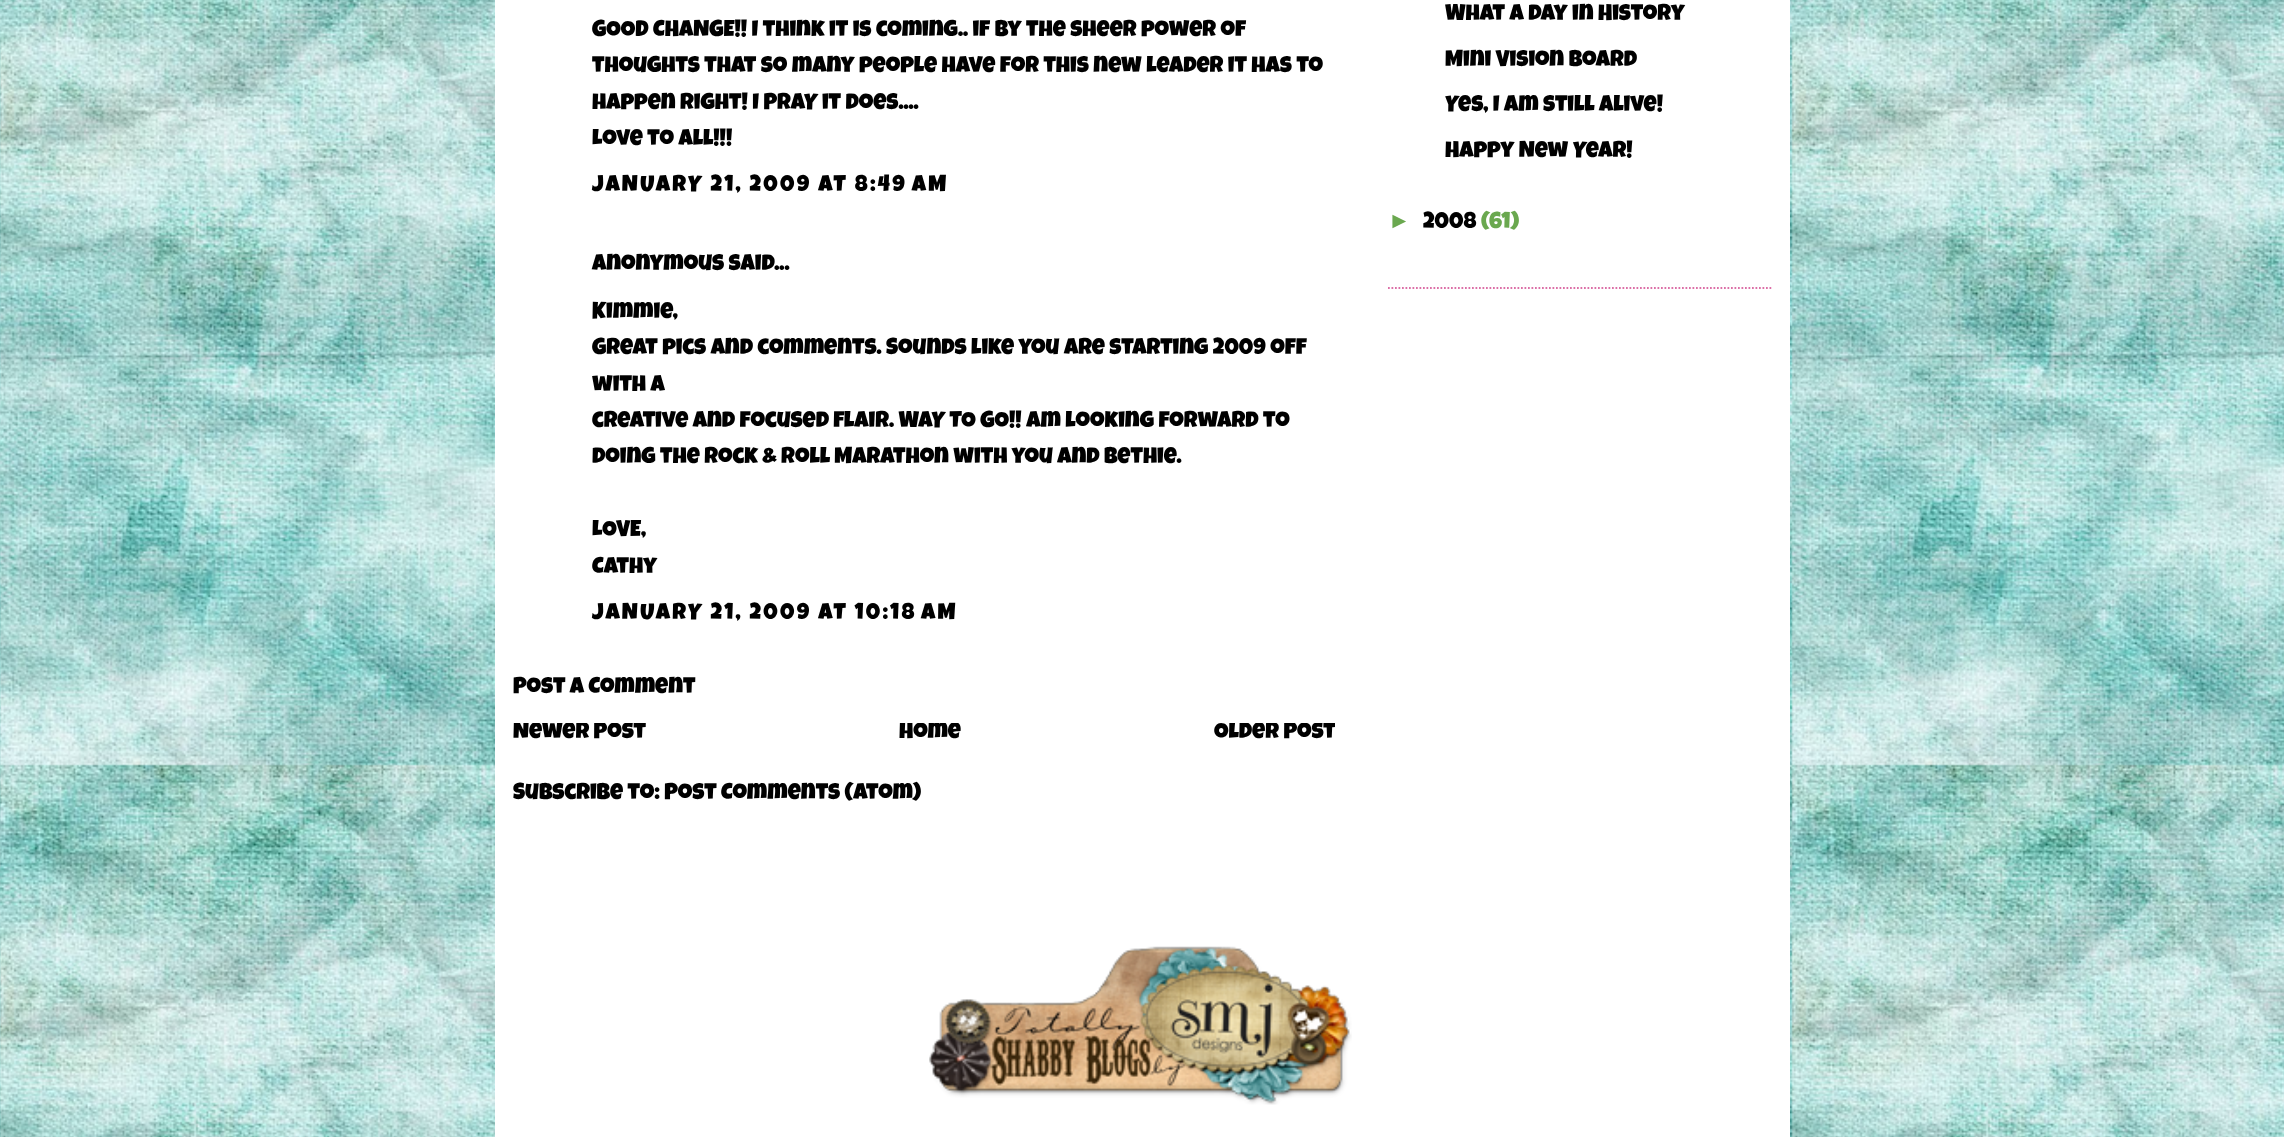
<?xml version="1.0" encoding="UTF-8"?>
<svg xmlns="http://www.w3.org/2000/svg" width="2284" height="1137">
    <defs>
        <clipPath id="clip1"><rect x="513" y="723" width="822" height="23"/></clipPath>
    </defs>
    <rect width="100%" height="100%" fill="#FFFFFF"/>
    <image x="0" y="0" width="2284" height="1137" href="img_01.png"/>
    <rect x="495" y="0" width="1295" height="1137" fill="#FFFFFF"/>
    <text font-family="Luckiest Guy" font-size="22.75" fill="#000000">
        <tspan x="592" y="36">GOOD CHANGE!! I think it is coming.. if by the sheer power of</tspan>
        <tspan x="592" y="72">thoughts that so many people have for this new leader it has to</tspan>
        <tspan x="592" y="109">happen right! I PRAY it does....</tspan>
        <tspan x="592" y="145">Love to all!!!</tspan>
    </text>
    <text x="592" y="191" font-family="Luckiest Guy" font-size="22.75" letter-spacing="2.25" fill="#000000">JANUARY 21, 2009 AT 8:49 AM</text>
    <text x="592" y="270" font-family="Luckiest Guy" font-size="22.75" fill="#000000">Anonymous said...</text>
    <text font-family="Luckiest Guy" font-size="22.75" fill="#000000">
        <tspan x="592" y="318">Kimmie,</tspan>
        <tspan x="592" y="354">Great pics and comments. Sounds like you are starting 2009 off</tspan>
        <tspan x="592" y="391">with a</tspan>
        <tspan x="592" y="427">creative and focused flair. WAY TO GO!! Am looking forward to</tspan>
        <tspan x="592" y="463">doing the Rock &amp; Roll Marathon with you and Bethie.</tspan>
    </text>
    <text font-family="Luckiest Guy" font-size="22.75" fill="#000000">
        <tspan x="592" y="536">LOVE,</tspan>
        <tspan x="592" y="573">Cathy</tspan>
    </text>
    <text x="592" y="619" font-family="Luckiest Guy" font-size="22.75" letter-spacing="2.25" fill="#000000">JANUARY 21, 2009 AT 10:18 AM</text>
    <text x="513" y="693" font-family="Luckiest Guy" font-size="22.75" fill="#000000">Post a Comment</text>
    <g clip-path="url(#clip1)">
        <text x="513" y="738" font-family="Luckiest Guy" font-size="22.75" fill="#000000">Newer Post</text>
        <text x="899" y="738" font-family="Luckiest Guy" font-size="22.75" fill="#000000">Home</text>
        <text x="1214" y="738" font-family="Luckiest Guy" font-size="22.75" fill="#000000">Older Post</text>
    </g>
    <text x="513" y="799" font-family="Luckiest Guy" font-size="22.75" fill="#000000">Subscribe to: Post Comments (Atom)</text>
    <path d="M 1388 288 H 1773" fill="none" stroke="#DC6FA7" stroke-width="1.8" stroke-dasharray="1.75 1.75"/>
    <text x="1445" y="20" font-family="Luckiest Guy" font-size="22.75" fill="#000000">What a day in History</text>
    <text font-family="Luckiest Guy" font-size="22.75" fill="#000000">
        <tspan x="1445" y="66">Mini Vision Board</tspan>
        <tspan x="1445" y="111">Yes, I am still alive!</tspan>
    </text>
    <text x="1445" y="157" font-family="Luckiest Guy" font-size="22.75" fill="#000000">Happy New Year!</text>
    <text x="1388" y="228" font-family="Liberation Sans" font-size="22.75" fill="#6AA84F">►</text>
    <text x="1423" y="228" font-family="Luckiest Guy" font-size="22.75" fill="#000000">2008</text>
    <text x="1481" y="228" font-family="Luckiest Guy" font-size="22.75" fill="#6AA84F">(61)</text>
    <image x="929" y="946" width="423" height="159" href="img_02.png"/>
</svg>
